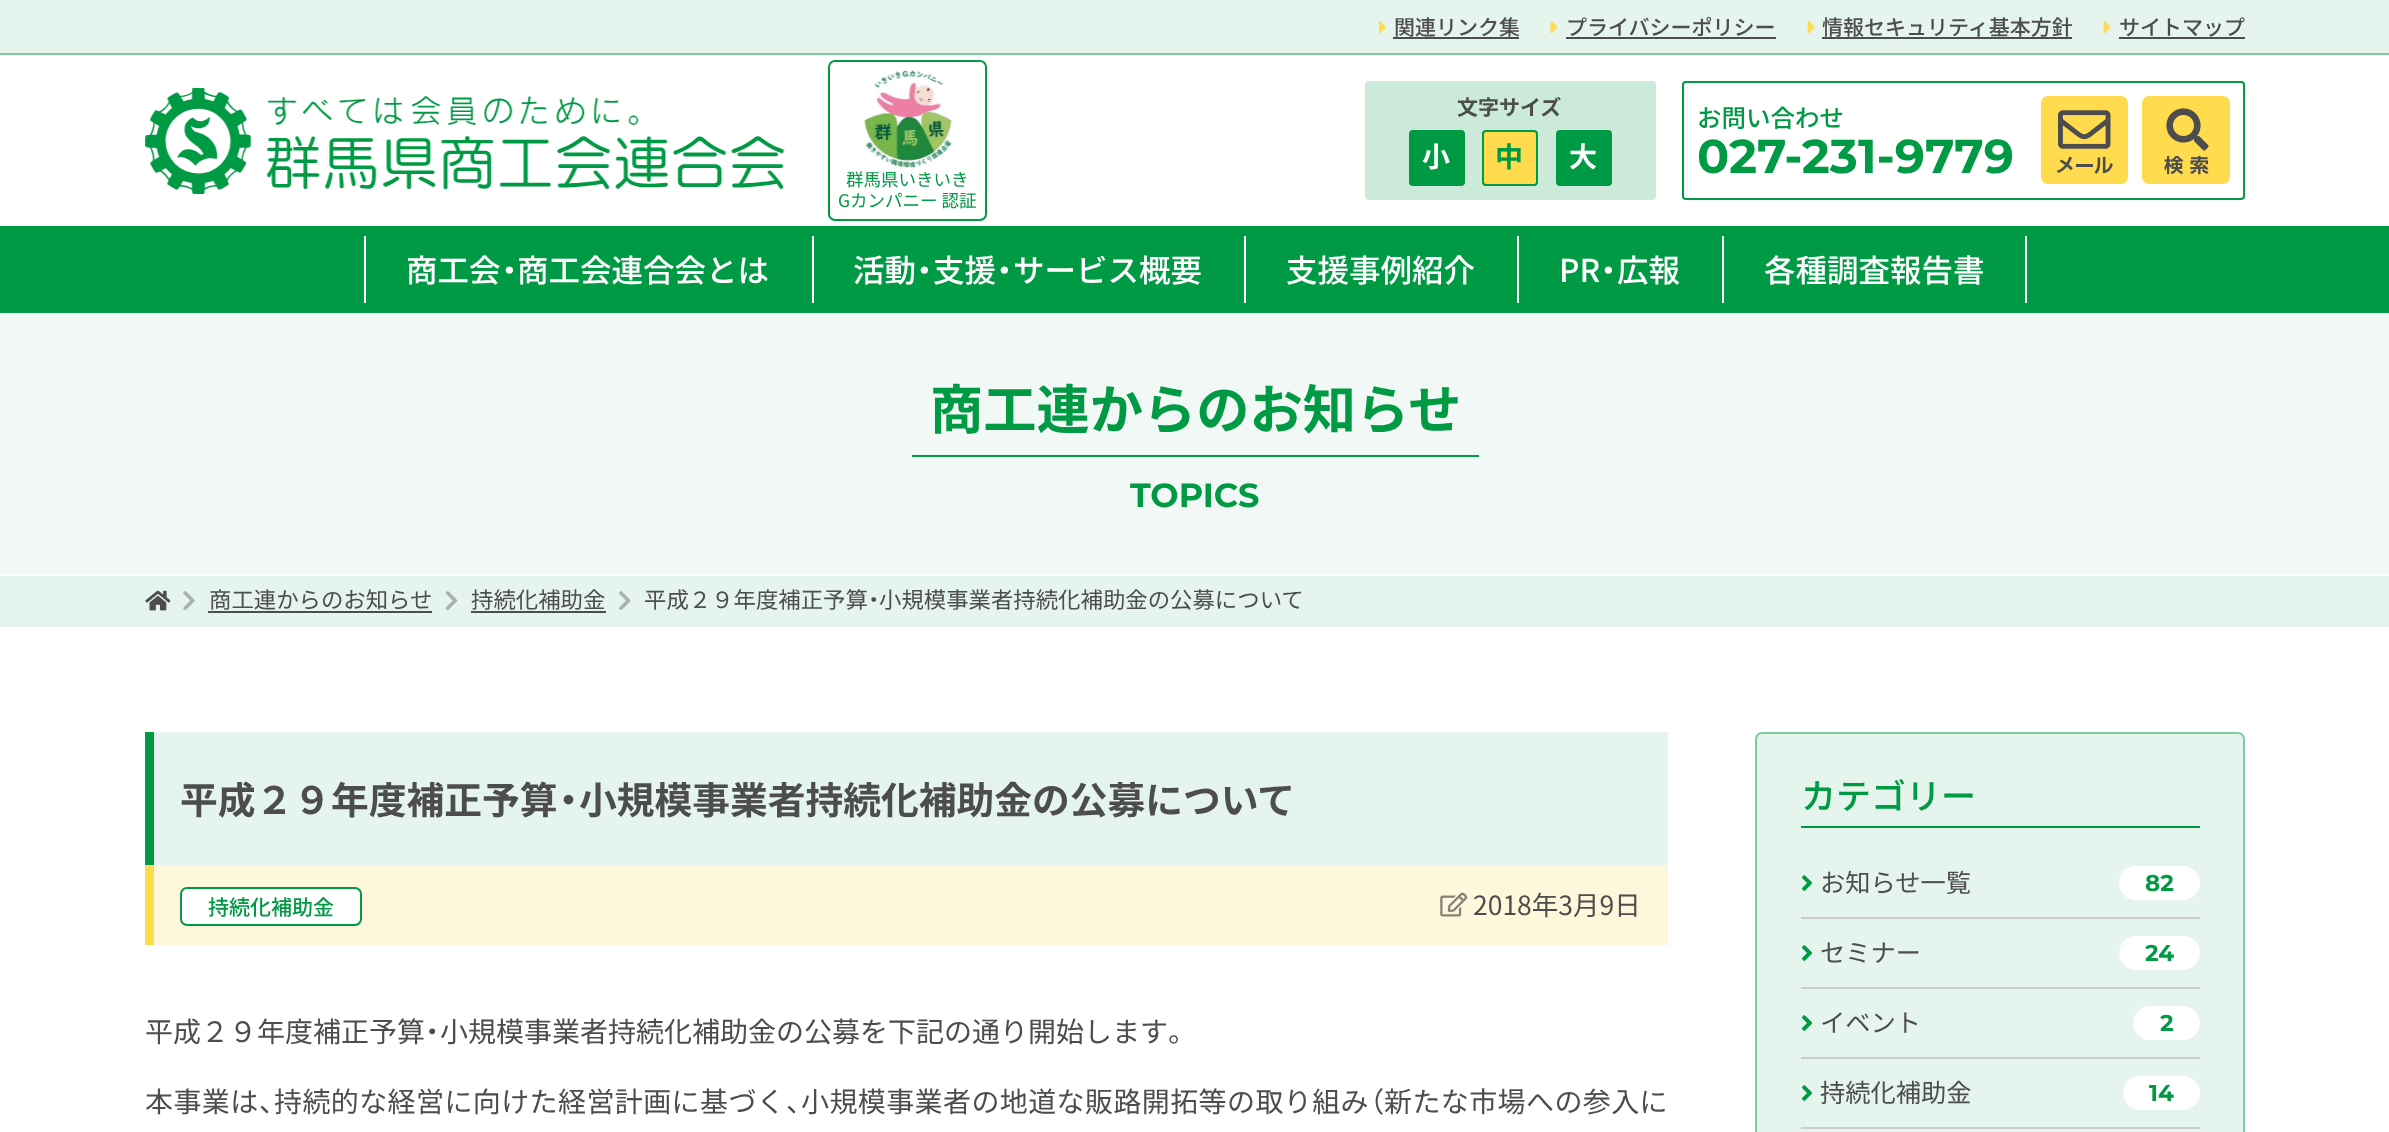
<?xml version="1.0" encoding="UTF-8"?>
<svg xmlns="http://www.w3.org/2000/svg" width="2389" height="1132">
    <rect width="100%" height="100%" fill="#FFFFFF"/>
    <rect x="0" y="0" width="2389" height="53" fill="#E5F4EC"/>
    <rect x="0" y="53" width="2389" height="2" fill="#7FCCA1"/>
    <image x="1379" y="21" width="7" height="13" href="img_01.png"/>
    <text x="1394" y="35" font-family="Noto Sans JP" font-size="21" font-weight="500" fill="#4D4D4D">関連リンク集</text>
    <rect x="1393" y="37" width="126" height="2" fill="#4D4D4D"/>
    <image x="1550" y="21" width="8" height="13" href="img_02.png"/>
    <text x="1566" y="35" font-family="Noto Sans JP" font-size="21" font-weight="500" fill="#4D4D4D">プライバシーポリシー</text>
    <rect x="1566" y="37" width="210" height="2" fill="#4D4D4D"/>
    <image x="1807" y="21" width="8" height="13" href="img_03.png"/>
    <text x="1822" y="35" font-family="Noto Sans JP" font-size="21" font-weight="500" fill="#4D4D4D">情報セキュリティ基本方針</text>
    <rect x="1822" y="37" width="250" height="2" fill="#4D4D4D"/>
    <image x="2103" y="21" width="8" height="13" href="img_02.png"/>
    <text x="2119" y="35" font-family="Noto Sans JP" font-size="21" font-weight="500" fill="#4D4D4D">サイトマップ</text>
    <rect x="2119" y="37" width="126" height="2" fill="#4D4D4D"/>
    <image x="145" y="88" width="640" height="106" href="img_04.png"/>
    <rect x="1365" y="81" width="291" height="119" rx="4" fill="#CCEAD9"/>
    <text x="1457" y="115" font-family="Noto Sans JP" font-size="21" font-weight="700" fill="#4D4D4D">文字サイズ</text>
    <rect x="1410" y="131" width="54" height="54" rx="3" fill="#009944" stroke="#009944" stroke-width="2"/>
    <text x="1422" y="167" font-family="Noto Sans JP" font-size="28" font-weight="700" fill="#FFFFFF">小</text>
    <rect x="1483" y="131" width="54" height="54" rx="3" fill="#FFDB4D" stroke="#009944" stroke-width="2"/>
    <text x="1495" y="167" font-family="Noto Sans JP" font-size="28" font-weight="700" fill="#009944">中</text>
    <rect x="1557" y="131" width="54" height="54" rx="3" fill="#009944" stroke="#009944" stroke-width="2"/>
    <text x="1569" y="167" font-family="Noto Sans JP" font-size="28" font-weight="700" fill="#FFFFFF">大</text>
    <rect x="1683" y="82" width="561" height="117" rx="3" fill="none" stroke="#009944" stroke-width="2"/>
    <text x="1697" y="127" font-family="Noto Sans JP" font-size="24.5" font-weight="500" fill="#009944">お問い合わせ</text>
    <text x="1697" y="173" font-family="Montserrat" font-size="47.5" font-weight="100" fill="#009944">027-231-9779</text>
    <rect x="2041" y="96" width="87" height="88" rx="7" fill="#FFDB4D"/>
    <image x="2056" y="110" width="57" height="64" href="img_05.png"/>
    <rect x="2142" y="96" width="88" height="88" rx="7" fill="#FFDB4D"/>
    <image x="2164" y="108" width="45" height="67" href="img_06.png"/>
    <rect x="829" y="61" width="157" height="159" rx="6" fill="none" stroke="#009944" stroke-width="2"/>
    <image x="864" y="70" width="88" height="98" href="img_07.png"/>
    <text x="846" y="186" font-family="Noto Sans JP" font-size="17.5" fill="#009944">群馬県いきいき</text>
    <text x="838" y="207" font-family="Noto Sans JP" font-size="17.5" fill="#009944">Gカンパニー 認証</text>
    <rect x="0" y="226" width="2389" height="87" fill="#009944"/>
    <rect x="364" y="236" width="2" height="67" fill="#FFFFFF"/>
    <text x="406" y="282" font-family="Noto Sans JP" font-size="31.5" font-weight="500" fill="#FFFFFF">商工会</text>
    <text x="501" y="282" font-family="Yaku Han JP" font-size="31.5" font-weight="500" fill="#FFFFFF">・</text>
    <text x="517" y="282" font-family="Noto Sans JP" font-size="31.5" font-weight="500" fill="#FFFFFF">商工会連合会とは</text>
    <rect x="812" y="236" width="2" height="67" fill="#FFFFFF"/>
    <text x="853" y="282" font-family="Noto Sans JP" font-size="31.5" font-weight="500" fill="#FFFFFF">活動</text>
    <text x="916" y="282" font-family="Yaku Han JP" font-size="31.5" font-weight="500" fill="#FFFFFF">・</text>
    <text x="933" y="282" font-family="Noto Sans JP" font-size="31.5" font-weight="500" fill="#FFFFFF">支援</text>
    <text x="996" y="282" font-family="Yaku Han JP" font-size="31.5" font-weight="500" fill="#FFFFFF">・</text>
    <text x="1013" y="282" font-family="Noto Sans JP" font-size="31.5" font-weight="500" fill="#FFFFFF">サービス概要</text>
    <rect x="1244" y="236" width="2" height="67" fill="#FFFFFF"/>
    <text x="1286" y="282" font-family="Noto Sans JP" font-size="31.5" font-weight="500" fill="#FFFFFF">支援事例紹介</text>
    <rect x="1517" y="236" width="2" height="67" fill="#FFFFFF"/>
    <text x="1559" y="282" font-family="Noto Sans JP" font-size="31.5" font-weight="500" fill="#FFFFFF">PR</text>
    <text x="1600" y="282" font-family="Yaku Han JP" font-size="31.5" font-weight="500" fill="#FFFFFF">・</text>
    <text x="1617" y="282" font-family="Noto Sans JP" font-size="31.5" font-weight="500" fill="#FFFFFF">広報</text>
    <rect x="1722" y="236" width="2" height="67" fill="#FFFFFF"/>
    <text x="1764" y="282" font-family="Noto Sans JP" font-size="31.5" font-weight="500" fill="#FFFFFF">各種調査報告書</text>
    <rect x="2025" y="236" width="2" height="67" fill="#FFFFFF"/>
    <rect x="0" y="313" width="2389" height="261" fill="#F1F8F6"/>
    <rect x="912" y="455" width="567" height="2" fill="#009944"/>
    <text x="930" y="429" font-family="Noto Sans JP" font-size="53.25" font-weight="700" fill="#009944">商工連からのお知らせ</text>
    <text x="1130" y="507" font-family="Montserrat" font-size="33.5" font-weight="100" fill="#009944">TOPICS</text>
    <rect x="0" y="576" width="2389" height="51" fill="#E5F4EC"/>
    <image x="145" y="590" width="26" height="21" href="img_08.png"/>
    <image x="183" y="591" width="12" height="20" href="img_09.png"/>
    <text x="209" y="608" font-family="Noto Sans JP" font-size="22.4" fill="#4D4D4D">商工連からのお知らせ</text>
    <rect x="208" y="611" width="224" height="2" fill="#4D4D4D"/>
    <image x="445" y="591" width="13" height="20" href="img_10.png"/>
    <text x="471" y="608" font-family="Noto Sans JP" font-size="22.4" fill="#4D4D4D">持続化補助金</text>
    <rect x="471" y="611" width="135" height="2" fill="#4D4D4D"/>
    <image x="619" y="591" width="12" height="19" href="img_11.png"/>
    <text x="644" y="608" font-family="Noto Sans JP" font-size="22.4" fill="#4D4D4D">平成２９年度補正予算</text>
    <text x="868" y="608" font-family="Yaku Han JP" font-size="22.4" fill="#4D4D4D">・</text>
    <text x="879" y="608" font-family="Noto Sans JP" font-size="22.4" fill="#4D4D4D">小規模事業者持続化補助金の公募について</text>
    <rect x="154" y="732" width="1514" height="133" fill="#E5F4EC"/>
    <rect x="145" y="732" width="9" height="133" fill="#009944"/>
    <text x="180" y="814" font-family="Noto Sans JP" font-size="37.75" font-weight="700" fill="#4D4D4D">平成２９年度補正予算</text>
    <text x="558" y="814" font-family="Yaku Han JP" font-size="37.75" font-weight="700" fill="#4D4D4D">・</text>
    <text x="579" y="814" font-family="Noto Sans JP" font-size="37.75" font-weight="700" fill="#4D4D4D">小規模事業者持続化補助金の公募について</text>
    <rect x="154" y="865" width="1514" height="80" fill="#FFF7DB"/>
    <rect x="145" y="865" width="9" height="80" fill="#FFDB4D"/>
    <rect x="181" y="888" width="180" height="37" rx="6" fill="#FFFFFF" stroke="#009944" stroke-width="2"/>
    <text x="208" y="915" font-family="Noto Sans JP" font-size="21" font-weight="500" fill="#009944">持続化補助金</text>
    <image x="1440" y="892" width="28" height="25" href="img_12.png"/>
    <text x="1473" y="915" font-family="Noto Sans JP" font-size="26.5" fill="#4D4D4D">2018年3月9日</text>
    <text x="145" y="1042" font-family="Noto Sans JP" font-size="28" fill="#4D4D4D">平成２９年度補正予算</text>
    <text x="425" y="1042" font-family="Yaku Han JP" font-size="28" fill="#4D4D4D">・</text>
    <text x="440" y="1042" font-family="Noto Sans JP" font-size="28" fill="#4D4D4D">小規模事業者持続化補助金の公募を下記の通り開始します</text>
    <text x="1168" y="1042" font-family="Yaku Han JP" font-size="28" fill="#4D4D4D">。</text>
    <text x="145" y="1112" font-family="Noto Sans JP" font-size="28" letter-spacing="0.4" fill="#4D4D4D">本事業は</text>
    <text x="259" y="1112" font-family="Yaku Han JP" font-size="28" letter-spacing="0.4" fill="#4D4D4D">、</text>
    <text x="274" y="1112" font-family="Noto Sans JP" font-size="28" letter-spacing="0.4" fill="#4D4D4D">持続的な経営に向けた経営計画に基づく</text>
    <text x="786" y="1112" font-family="Yaku Han JP" font-size="28" letter-spacing="0.4" fill="#4D4D4D">、</text>
    <text x="801" y="1112" font-family="Noto Sans JP" font-size="28" letter-spacing="0.4" fill="#4D4D4D">小規模事業者の地道な販路開拓等の取り組み</text>
    <text x="1370" y="1112" font-family="Yaku Han JP" font-size="28" letter-spacing="0.4" fill="#4D4D4D">（</text>
    <text x="1384" y="1112" font-family="Noto Sans JP" font-size="28" letter-spacing="0.4" fill="#4D4D4D">新たな市場への参入に</text>
    <rect x="1756" y="733" width="488" height="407" rx="6" fill="#E5F4EC" stroke="#7FCCA1" stroke-width="2"/>
    <rect x="1801" y="826" width="399" height="2" fill="#009944"/>
    <text x="1801" y="809" font-family="Noto Sans JP" font-size="35" font-weight="500" fill="#009944">カテゴリー</text>
    <rect x="1801" y="917" width="399" height="2" fill="#CCCCCC"/>
    <image x="1802" y="875" width="11" height="16" href="img_13.png"/>
    <text x="1820" y="892" font-family="Noto Sans JP" font-size="25.25" fill="#4D4D4D">お知らせ一覧</text>
    <rect x="2119" y="866" width="81" height="34" rx="17" fill="#FFFFFF"/>
    <text x="2145" y="891" font-family="Montserrat" font-size="23" font-weight="100" fill="#009944">82</text>
    <rect x="1801" y="987" width="399" height="2" fill="#CCCCCC"/>
    <image x="1802" y="945" width="11" height="16" href="img_13.png"/>
    <text x="1820" y="962" font-family="Noto Sans JP" font-size="25.25" fill="#4D4D4D">セミナー</text>
    <rect x="2119" y="936" width="81" height="34" rx="17" fill="#FFFFFF"/>
    <text x="2145" y="961" font-family="Montserrat" font-size="23" font-weight="100" fill="#009944">24</text>
    <rect x="1801" y="1057" width="399" height="2" fill="#CCCCCC"/>
    <image x="1802" y="1015" width="11" height="16" href="img_13.png"/>
    <text x="1820" y="1032" font-family="Noto Sans JP" font-size="25.25" fill="#4D4D4D">イベント</text>
    <rect x="2133" y="1006" width="67" height="34" rx="17" fill="#FFFFFF"/>
    <text x="2160" y="1031" font-family="Montserrat" font-size="23" font-weight="100" fill="#009944">2</text>
    <rect x="1801" y="1127" width="399" height="2" fill="#CCCCCC"/>
    <image x="1802" y="1085" width="11" height="16" href="img_13.png"/>
    <text x="1820" y="1102" font-family="Noto Sans JP" font-size="25.25" fill="#4D4D4D">持続化補助金</text>
    <rect x="2123" y="1076" width="77" height="34" rx="17" fill="#FFFFFF"/>
    <text x="2149" y="1101" font-family="Montserrat" font-size="23" font-weight="100" fill="#009944">14</text>
</svg>
